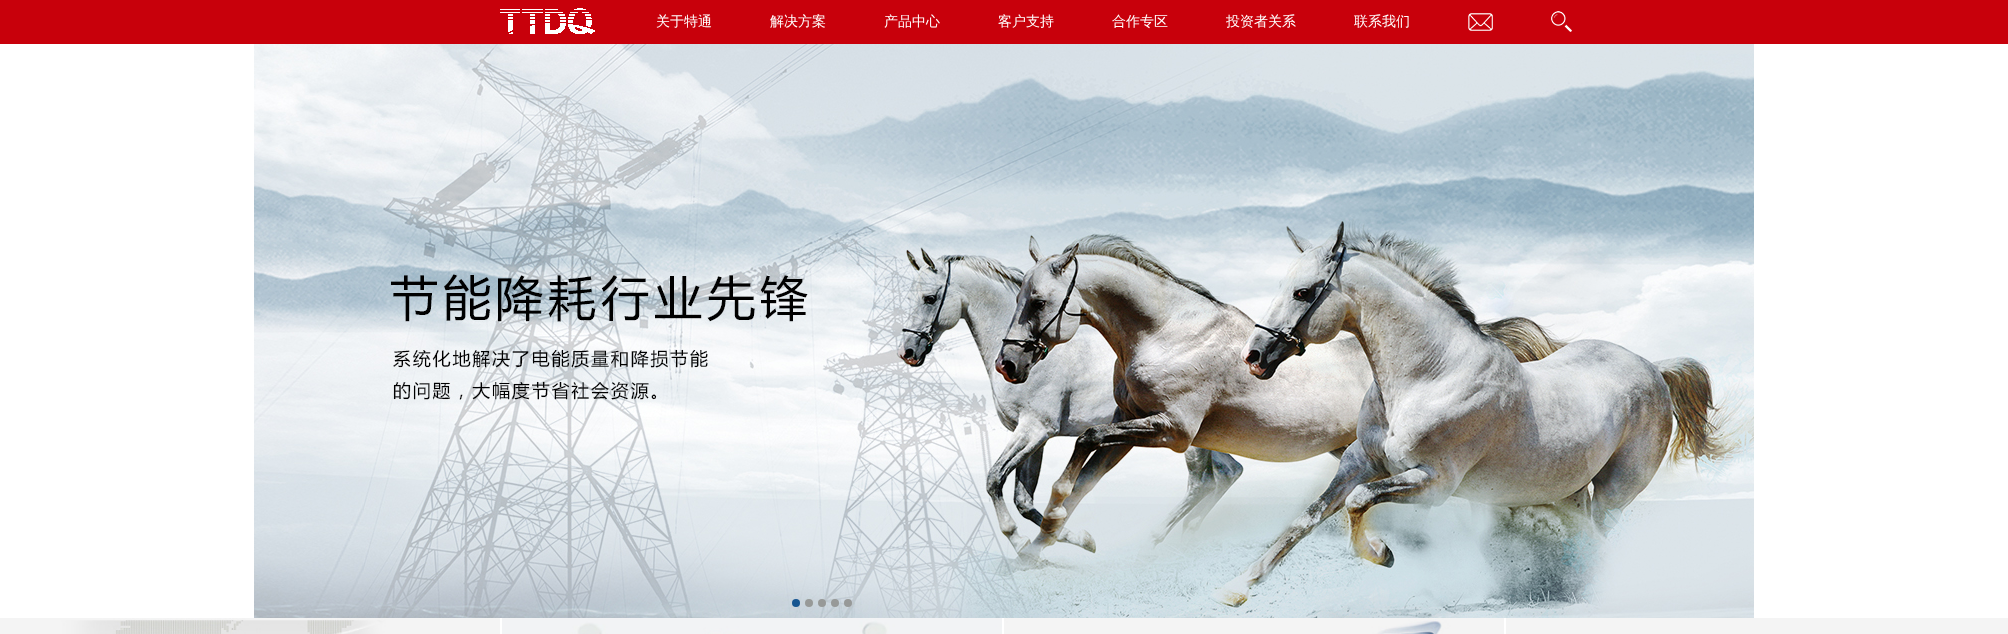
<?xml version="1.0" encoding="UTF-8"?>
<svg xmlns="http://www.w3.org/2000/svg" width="2008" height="634">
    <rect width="100%" height="100%" fill="#FFFFFF"/>
    <rect x="0" y="0" width="2008" height="44" fill="#C8000B"/>
    <image x="500" y="8" width="95" height="26" href="img_01.png"/>
    <text x="656" y="26" font-family="WenQuanYi Zen Hei" font-size="14" font-weight="500" fill="#FFFFFF">关于特通</text>
    <text x="770" y="26" font-family="WenQuanYi Zen Hei" font-size="14" font-weight="500" fill="#FFFFFF">解决方案</text>
    <text x="884" y="26" font-family="WenQuanYi Zen Hei" font-size="14" font-weight="500" fill="#FFFFFF">产品中心</text>
    <text x="998" y="26" font-family="WenQuanYi Zen Hei" font-size="14" font-weight="500" fill="#FFFFFF">客户支持</text>
    <text x="1112" y="26" font-family="WenQuanYi Zen Hei" font-size="14" font-weight="500" fill="#FFFFFF">合作专区</text>
    <text x="1226" y="26" font-family="WenQuanYi Zen Hei" font-size="14" font-weight="500" fill="#FFFFFF">投资者关系</text>
    <text x="1354" y="26" font-family="WenQuanYi Zen Hei" font-size="14" font-weight="500" fill="#FFFFFF">联系我们</text>
    <image x="1468" y="13" width="25" height="18" href="img_02.png"/>
    <image x="1551" y="11" width="21" height="21" href="img_03.png"/>
    <image x="254" y="44" width="1500" height="574" href="img_04.png"/>
    <circle cx="796" cy="603" r="4" fill="#165591"/>
    <circle cx="809" cy="603" r="4" fill="#979998"/>
    <circle cx="822" cy="603" r="4" fill="#979998"/>
    <circle cx="835" cy="603" r="4" fill="#979998"/>
    <circle cx="848" cy="603" r="4" fill="#979998"/>
    <image x="0" y="618" width="500" height="16" href="img_05.png"/>
    <image x="502" y="618" width="500" height="16" href="img_06.png"/>
    <image x="1004" y="618" width="500" height="16" href="img_07.png"/>
    <rect x="1506" y="618" width="502" height="16" fill="#F4F4F4"/>
</svg>
